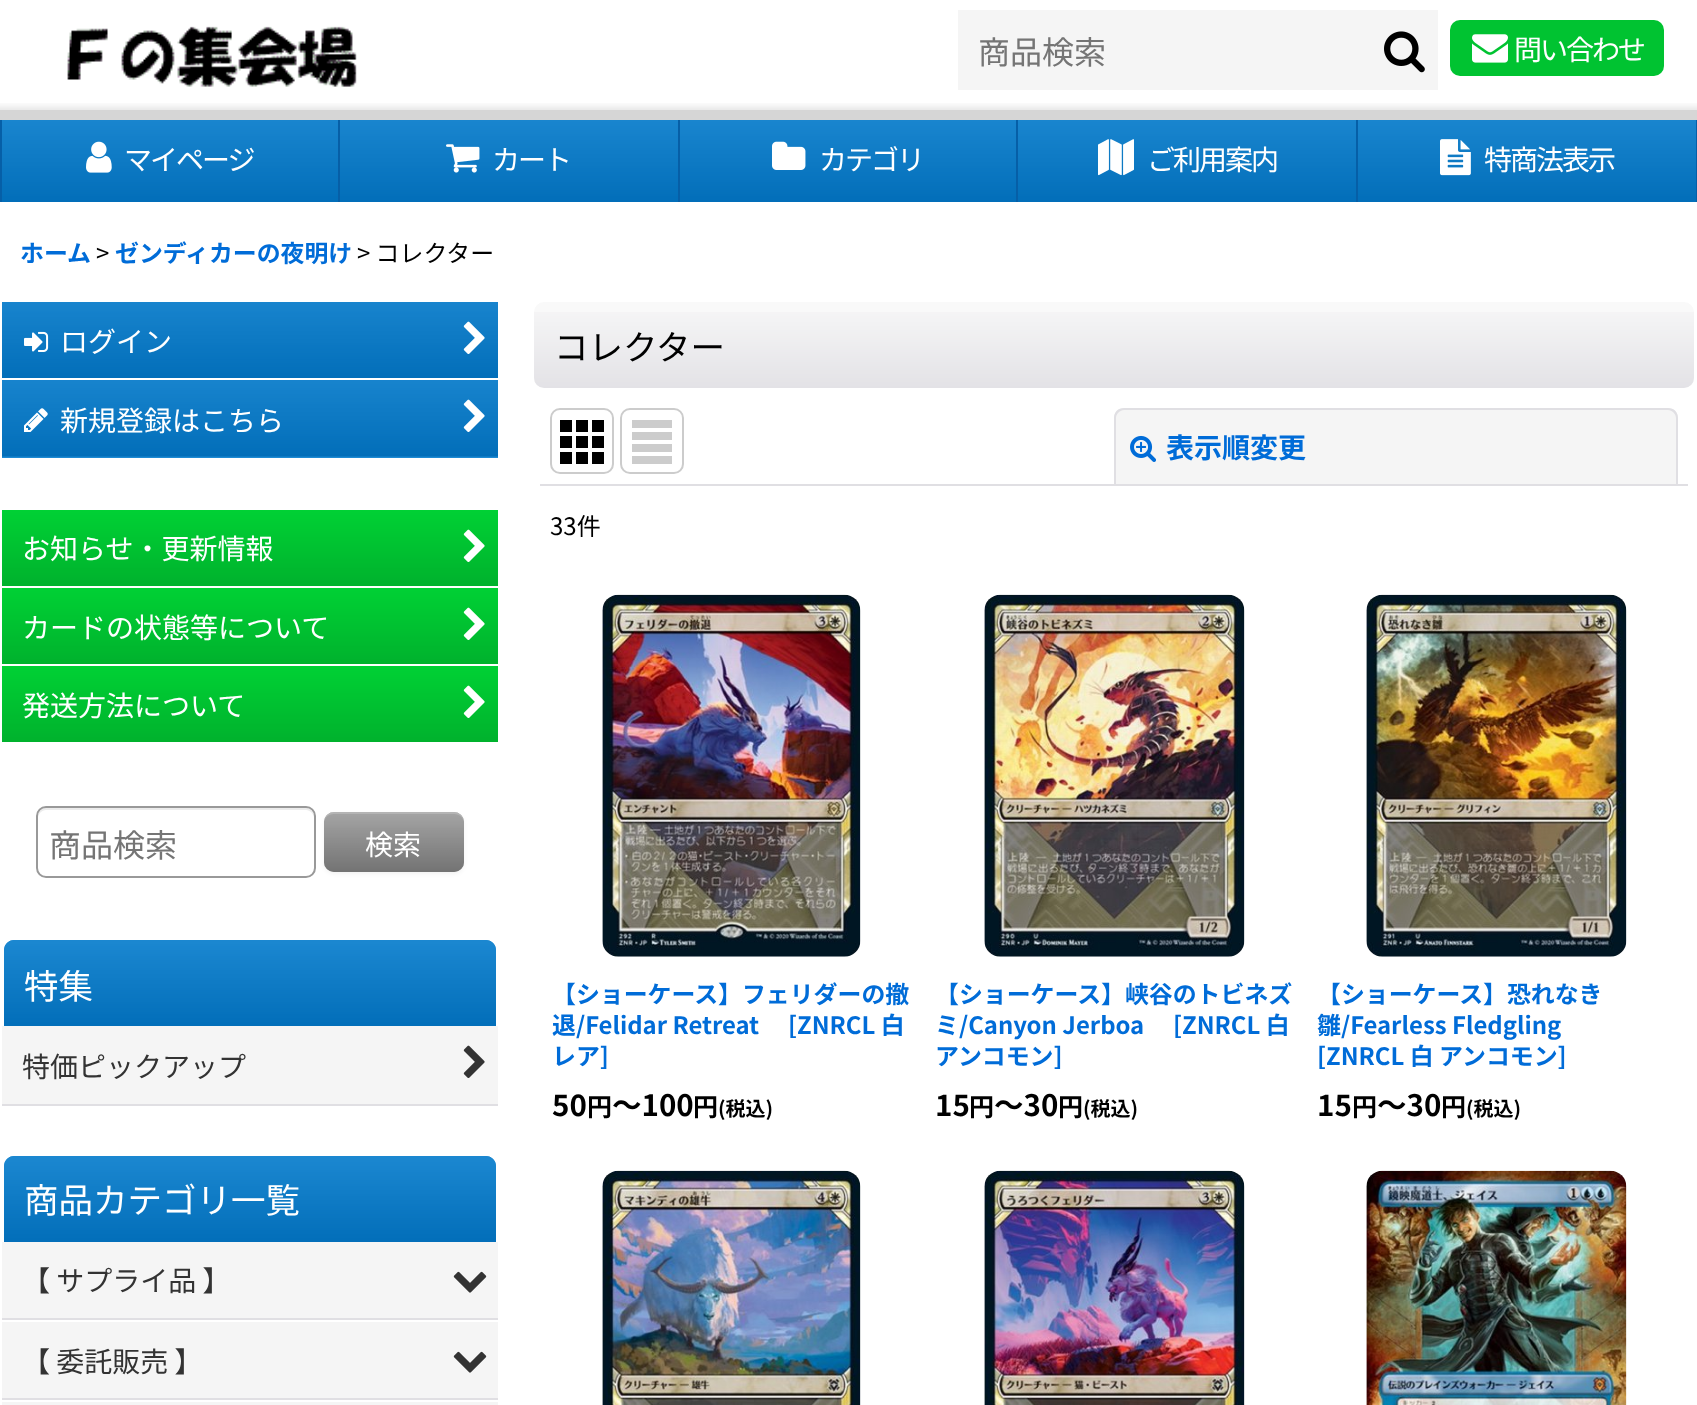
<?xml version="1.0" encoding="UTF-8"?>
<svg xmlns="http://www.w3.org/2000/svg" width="1697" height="1405">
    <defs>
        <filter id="blur1" x="-50%" y="-200%" width="200%" height="500%"><feGaussianBlur stdDeviation="2"/></filter>
    </defs>
    <rect width="100%" height="100%" fill="#FFFFFF"/>
    <image x="0" y="103" width="1697" height="17" href="img_01.png"/>
    <rect x="958" y="10" width="480" height="80" fill="#F5F5F5"/>
    <text x="978" y="64" font-family="Noto Sans JP" font-size="32" fill="#757575">商品検索</text>
    <image x="1384" y="31" width="41" height="42" href="img_02.png"/>
    <image x="67" y="26" width="290" height="61" href="img_03.png"/>
    <rect x="1450" y="20" width="214" height="56" rx="10" fill="#00C331"/>
    <image x="1472" y="34" width="36" height="29" href="img_04.png"/>
    <text x="1514" y="60" font-family="Noto Sans JP" font-size="28" letter-spacing="-2" fill="#FFFFFF">問い合わせ</text>
    <image x="2" y="120" width="336" height="82" href="img_05.png"/>
    <rect x="338" y="120" width="2" height="82" fill="#065FA7"/>
    <rect x="0" y="120" width="2" height="82" fill="#065FA7"/>
    <image x="86" y="141" width="26" height="32" href="img_06.png"/>
    <text x="124" y="170" font-family="Noto Sans JP" font-size="28" letter-spacing="-2" fill="#FFFFFF">マイページ</text>
    <image x="340" y="120" width="338" height="82" href="img_07.png"/>
    <rect x="678" y="120" width="2" height="82" fill="#065FA7"/>
    <image x="446" y="144" width="34" height="29" href="img_08.png"/>
    <text x="492" y="170" font-family="Noto Sans JP" font-size="28" letter-spacing="-2" fill="#FFFFFF">カート</text>
    <image x="680" y="120" width="336" height="82" href="img_05.png"/>
    <rect x="1016" y="120" width="2" height="82" fill="#065FA7"/>
    <image x="772" y="141" width="34" height="29" href="img_09.png"/>
    <text x="819" y="170" font-family="Noto Sans JP" font-size="28" letter-spacing="-2" fill="#FFFFFF">カテゴリ</text>
    <image x="1018" y="120" width="338" height="82" href="img_07.png"/>
    <rect x="1356" y="120" width="2" height="82" fill="#065FA7"/>
    <image x="1098" y="139" width="36" height="37" href="img_10.png"/>
    <text x="1147" y="170" font-family="Noto Sans JP" font-size="28" letter-spacing="-2" fill="#FFFFFF">ご利用案内</text>
    <image x="1358" y="120" width="338" height="82" href="img_07.png"/>
    <rect x="1696" y="120" width="1" height="82" fill="#065FA7"/>
    <image x="1440" y="139" width="31" height="37" href="img_11.png"/>
    <text x="1484" y="170" font-family="Noto Sans JP" font-size="28" letter-spacing="-2" fill="#FFFFFF">特商法表示</text>
    <text x="20" y="262" font-family="Noto Sans JP" font-size="23.9" font-weight="700" fill="#006CD8">ホーム</text>
    <text x="96" y="262" font-family="Noto Sans JP" font-size="23.9" fill="#000000">&gt;</text>
    <text x="115" y="262" font-family="Noto Sans JP" font-size="23.9" font-weight="700" fill="#006CD8">ゼンディカーの夜明け</text>
    <text x="357" y="262" font-family="Noto Sans JP" font-size="23.9" fill="#000000">&gt; コレクター</text>
    <image x="2" y="302" width="496" height="76" href="img_12.png"/>
    <image x="24" y="331" width="25" height="21" href="img_13.png"/>
    <text x="60" y="352" font-family="Noto Sans JP" font-size="28" fill="#FFFFFF">ログイン</text>
    <image x="463" y="321" width="22" height="33" href="img_14.png"/>
    <rect x="2" y="457" width="496" height="1" fill="#1E8AD3"/>
    <image x="2" y="380" width="496" height="77" href="img_15.png"/>
    <image x="24" y="408" width="24" height="24" href="img_16.png"/>
    <text x="60" y="431" font-family="Noto Sans JP" font-size="28" fill="#FFFFFF">新規登録はこちら</text>
    <image x="463" y="399" width="22" height="33" href="img_17.png"/>
    <image x="2" y="510" width="496" height="76" href="img_18.png"/>
    <text x="22" y="559" font-family="Noto Sans JP" font-size="28" fill="#FFFFFF">お知らせ・更新情報</text>
    <image x="463" y="529" width="22" height="33" href="img_19.png"/>
    <image x="2" y="588" width="496" height="76" href="img_18.png"/>
    <text x="22" y="638" font-family="Noto Sans JP" font-size="28" fill="#FFFFFF">カードの状態等について</text>
    <image x="463" y="607" width="22" height="33" href="img_19.png"/>
    <image x="2" y="666" width="496" height="76" href="img_18.png"/>
    <text x="22" y="716" font-family="Noto Sans JP" font-size="28" fill="#FFFFFF">発送方法について</text>
    <image x="463" y="685" width="22" height="33" href="img_19.png"/>
    <path d="M 46 810 H 306 C 310 810 314 814 314 818 V 816 C 314 812 310 808 306 808 H 46 C 42 808 38 812 38 816 V 818 C 38 814 42 810 46 810 Z" fill="#ECECEC"/>
    <rect x="37" y="807" width="278" height="70" rx="9" fill="none" stroke="#999999" stroke-width="2"/>
    <text x="49" y="857" font-family="Noto Sans JP" font-size="32" fill="#757575">商品検索</text>
    <rect x="324" y="814" width="140" height="60" rx="10" fill="#000000" fill-opacity="0.05" filter="url(#blur1)"/>
    <rect x="324" y="812" width="140" height="60" rx="10" fill="#A2A2A2"/>
    <image x="324" y="812" width="140" height="60" href="img_20.png"/>
    <path d="M 334 814 H 454 C 460 814 464 818 464 824 C 464 807 446 812 434 812 H 354 C 342 812 324 807 324 824 C 324 818 328 814 334 814 Z" fill="#FFFFFF" fill-opacity="0.2"/>
    <text x="365" y="855" font-family="Noto Sans JP" font-size="28" fill="#FFFFFF">検索</text>
    <path d="M 14 940 H 486 C 491.5 940 496 944.5 496 950 V 1026 H 4 V 950 C 4 944.5 8.5 940 14 940 Z" fill="#1E8AD3"/>
    <image x="4" y="940" width="492" height="86" href="img_21.png"/>
    <text x="24" y="999" font-family="Noto Sans JP" font-size="34.5" fill="#FFFFFF">特集</text>
    <rect x="2" y="1026" width="496" height="78" fill="#F5F5F5"/>
    <rect x="2" y="1104" width="496" height="2" fill="#E0DFE3"/>
    <text x="22" y="1077" font-family="Noto Sans JP" font-size="28" fill="#333333">特価ピックアップ</text>
    <image x="463" y="1045" width="22" height="33" href="img_22.png"/>
    <path d="M 14 1156 H 486 C 491.5 1156 496 1160.5 496 1166 V 1242 H 4 V 1166 C 4 1160.5 8.5 1156 14 1156 Z" fill="#1E8AD3"/>
    <image x="4" y="1156" width="492" height="86" href="img_21.png"/>
    <text x="24" y="1213" font-family="Noto Sans JP" font-size="34.5" fill="#FFFFFF">商品カテゴリ一覧</text>
    <rect x="2" y="1242" width="496" height="76" fill="#F5F5F5"/>
    <rect x="2" y="1318" width="496" height="2" fill="#E0DFE3"/>
    <text x="22" y="1291" font-family="Noto Sans JP" font-size="28" fill="#333333">【 サプライ品 】</text>
    <image x="453" y="1271" width="34" height="22" href="img_23.png"/>
    <rect x="2" y="1322" width="496" height="76" fill="#F5F5F5"/>
    <rect x="2" y="1398" width="496" height="2" fill="#E0DFE3"/>
    <text x="22" y="1372" font-family="Noto Sans JP" font-size="28" fill="#333333">【 委託販売 】</text>
    <image x="453" y="1351" width="34" height="22" href="img_23.png"/>
    <rect x="2" y="1402" width="496" height="3" fill="#F5F5F5"/>
    <rect x="534" y="302" width="1160" height="86" rx="10" fill="#F9F9F9"/>
    <image x="534" y="312" width="1160" height="76" href="img_24.png"/>
    <text x="554" y="360" font-family="Noto Sans JP" font-size="34.5" fill="#000000">コレクター</text>
    <rect x="540" y="484" width="1148" height="2" fill="#E0DFE3"/>
    <rect x="551" y="409" width="62" height="64" rx="9" fill="none" stroke="#CCCCCC" stroke-width="2"/>
    <image x="560" y="420" width="44" height="44" href="img_25.png"/>
    <rect x="621" y="409" width="62" height="64" rx="9" fill="none" stroke="#CCCCCC" stroke-width="2"/>
    <image x="632" y="420" width="40" height="44" href="img_26.png"/>
    <path d="M 1124 408 H 1668 C 1673.5 408 1678 412.5 1678 418 V 484 H 1114 V 418 C 1114 412.5 1118.5 408 1124 408 Z" fill="#F5F5F5"/>
    <path d="M 1124 408 H 1668 C 1674 408 1678 412 1678 418 V 484 H 1114 V 418 C 1114 412 1118 408 1124 408 Z M 1124 410 H 1668 C 1672 410 1676 414 1676 418 V 484 H 1116 V 418 C 1116 414 1120 410 1124 410 Z" fill="#E0DFE3" fill-rule="evenodd"/>
    <image x="1130" y="435" width="26" height="27" href="img_27.png"/>
    <text x="1166" y="458" font-family="Noto Sans JP" font-size="28" font-weight="700" fill="#006CD8">表示順変更</text>
    <text x="550" y="535" font-family="Noto Sans JP" font-size="24" fill="#000000">33件</text>
    <image x="602" y="594" width="259" height="363" href="img_28.png"/>
    <text font-family="Noto Sans JP" font-size="23.9" font-weight="700" fill="#006CD8">
        <tspan x="552" y="1003">【ショーケース】フェリダーの撤</tspan>
        <tspan x="552" y="1034">退/Felidar Retreat</tspan>
    </text>
    <text x="788" y="1034" font-family="Noto Sans JP" font-size="23.9" font-weight="700" fill="#006CD8">[ZNRCL 白</text>
    <text x="552" y="1065" font-family="Noto Sans JP" font-size="23.9" font-weight="700" fill="#006CD8">レア]</text>
    <text x="552" y="1116" font-family="Noto Sans JP" font-size="29.5" font-weight="700" fill="#000000">50</text>
    <text x="587" y="1116" font-family="Noto Sans JP" font-size="25" font-weight="700" fill="#000000">円</text>
    <text x="612" y="1116" font-family="Noto Sans JP" font-size="29.5" font-weight="700" fill="#000000">～100</text>
    <text x="693" y="1116" font-family="Noto Sans JP" font-size="25" font-weight="700" fill="#000000">円</text>
    <text x="718" y="1116" font-family="Noto Sans JP" font-size="20" font-weight="700" fill="#000000">(税込)</text>
    <image x="984" y="594" width="261" height="363" href="img_29.png"/>
    <text font-family="Noto Sans JP" font-size="23.9" font-weight="700" fill="#006CD8">
        <tspan x="935" y="1003">【ショーケース】峡谷のトビネズ</tspan>
        <tspan x="935" y="1034">ミ/Canyon Jerboa</tspan>
    </text>
    <text x="1173" y="1034" font-family="Noto Sans JP" font-size="23.9" font-weight="700" fill="#006CD8">[ZNRCL 白</text>
    <text x="935" y="1065" font-family="Noto Sans JP" font-size="23.9" font-weight="700" fill="#006CD8">アンコモン]</text>
    <text x="935" y="1116" font-family="Noto Sans JP" font-size="29.5" font-weight="700" fill="#000000">15</text>
    <text x="969" y="1116" font-family="Noto Sans JP" font-size="25" font-weight="700" fill="#000000">円</text>
    <text x="994" y="1116" font-family="Noto Sans JP" font-size="29.5" font-weight="700" fill="#000000">～30</text>
    <text x="1058" y="1116" font-family="Noto Sans JP" font-size="25" font-weight="700" fill="#000000">円</text>
    <text x="1083" y="1116" font-family="Noto Sans JP" font-size="20" font-weight="700" fill="#000000">(税込)</text>
    <image x="1366" y="594" width="261" height="363" href="img_30.png"/>
    <text font-family="Noto Sans JP" font-size="23.9" font-weight="700" fill="#006CD8">
        <tspan x="1317" y="1003">【ショーケース】恐れなき</tspan>
        <tspan x="1317" y="1034">雛/Fearless Fledgling</tspan>
        <tspan x="1317" y="1065">[ZNRCL 白 アンコモン]</tspan>
    </text>
    <text x="1317" y="1116" font-family="Noto Sans JP" font-size="29.5" font-weight="700" fill="#000000">15</text>
    <text x="1352" y="1116" font-family="Noto Sans JP" font-size="25" font-weight="700" fill="#000000">円</text>
    <text x="1377" y="1116" font-family="Noto Sans JP" font-size="29.5" font-weight="700" fill="#000000">～30</text>
    <text x="1441" y="1116" font-family="Noto Sans JP" font-size="25" font-weight="700" fill="#000000">円</text>
    <text x="1466" y="1116" font-family="Noto Sans JP" font-size="20" font-weight="700" fill="#000000">(税込)</text>
    <image x="602" y="1170" width="259" height="235" href="img_31.png"/>
    <image x="984" y="1170" width="261" height="235" href="img_32.png"/>
    <image x="1366" y="1170" width="261" height="235" href="img_33.png"/>
</svg>
